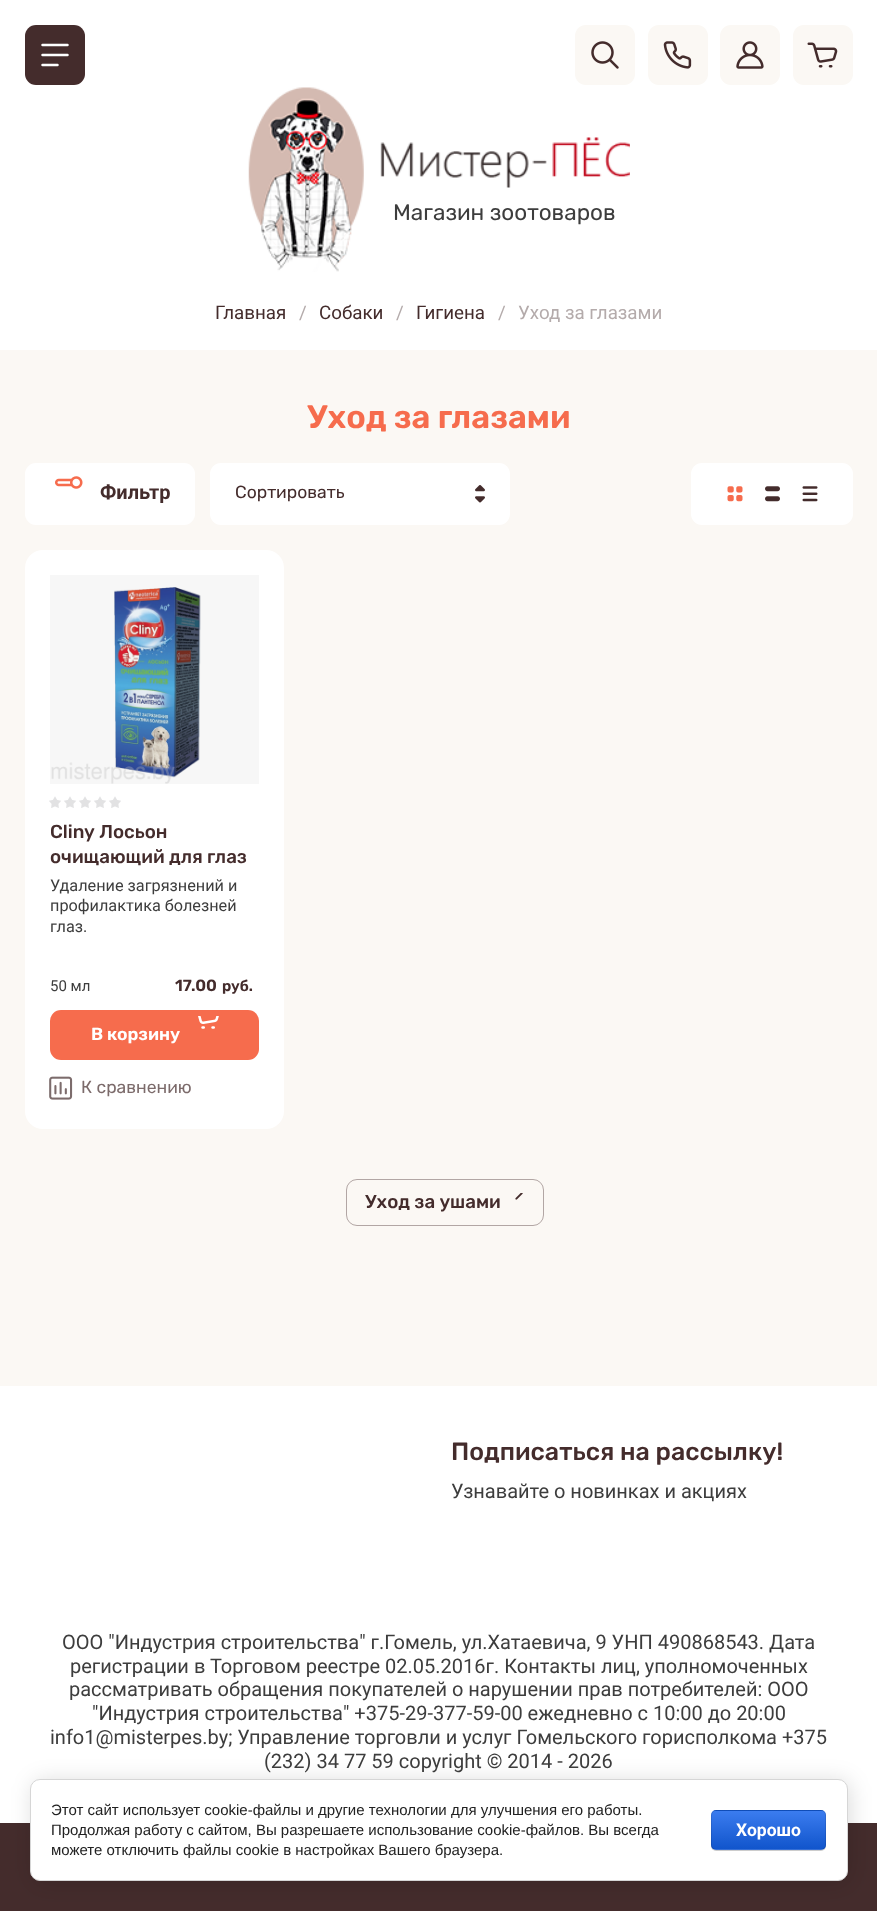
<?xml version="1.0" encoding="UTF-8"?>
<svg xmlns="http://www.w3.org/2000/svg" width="877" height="1911">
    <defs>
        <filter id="blur1" x="-50%" y="-200%" width="200%" height="500%"><feGaussianBlur stdDeviation="11"/></filter>
        <filter id="blur2" x="-50%" y="-200%" width="200%" height="500%"><feGaussianBlur stdDeviation="0.5"/></filter>
        <clipPath id="clip1"><rect x="711" y="1810" width="115" height="40" rx="5"/></clipPath>
        <linearGradient id="g1" gradientUnits="userSpaceOnUse" x1="769" y1="1774" x2="769" y2="1811"><stop offset="0" stop-color="#3B7CEF"/><stop offset="1" stop-color="#1155CC"/></linearGradient>
        <linearGradient id="g2" gradientUnits="userSpaceOnUse" x1="769" y1="1811" x2="769" y2="1849"><stop offset="0" stop-color="#3B7CEF"/><stop offset="1" stop-color="#1155CC"/></linearGradient>
        <linearGradient id="g3" gradientUnits="userSpaceOnUse" x1="769" y1="1849" x2="769" y2="1886"><stop offset="0" stop-color="#3B7CEF"/><stop offset="1" stop-color="#1155CC"/></linearGradient>
    </defs>
    <rect width="100%" height="100%" fill="#FBF8F4"/>
    <rect x="0" y="0" width="877" height="350" fill="#FFFFFF"/>
    <rect x="25" y="25" width="60" height="60" rx="11" fill="#442C2C"/>
    <image x="41" y="43" width="28" height="24" href="img_01.png"/>
    <rect x="575" y="25" width="60" height="60" rx="11" fill="#FBF8F4"/>
    <image x="591" y="41" width="28" height="28" href="img_02.png"/>
    <rect x="648" y="25" width="60" height="60" rx="11" fill="#FBF8F4"/>
    <image x="663" y="41" width="29" height="28" href="img_03.png"/>
    <rect x="720" y="25" width="60" height="60" rx="11" fill="#FBF8F4"/>
    <image x="736" y="41" width="28" height="28" href="img_04.png"/>
    <rect x="793" y="25" width="60" height="60" rx="11" fill="#FBF8F4"/>
    <image x="807" y="42" width="31" height="26" href="img_05.png"/>
    <image x="248" y="87" width="116" height="185" href="img_06.png"/>
    <image x="380" y="137" width="250" height="51" href="img_07.png"/>
    <text x="393" y="220" font-family="Rubik" font-size="22.5" fill="#3D3D3D">Магазин зоотоваров</text>
    <text x="215" y="319" font-family="Roboto" font-size="18.75" fill="#442C2C">Главная</text>
    <text x="299" y="319" font-family="Roboto" font-size="18.75" fill="#B4ABAB">/</text>
    <text x="319" y="319" font-family="Roboto" font-size="18.75" fill="#442C2C">Собаки</text>
    <text x="396" y="319" font-family="Roboto" font-size="18.75" fill="#B4ABAB">/</text>
    <text x="416" y="319" font-family="Roboto" font-size="18.75" fill="#442C2C">Гигиена</text>
    <text x="498" y="319" font-family="Roboto" font-size="18.75" fill="#B4ABAB">/</text>
    <text x="518" y="319" font-family="Roboto" font-size="18.75" fill="#B4ABAB">Уход за глазами</text>
    <text x="307" y="428" font-family="Rubik" font-size="32.5" font-weight="600" fill="#F66C4D">Уход за глазами</text>
    <rect x="25" y="463" width="170" height="62" rx="11" fill="#FFFFFF"/>
    <image x="55" y="476" width="28" height="13" href="img_08.png"/>
    <text x="100" y="499" font-family="Roboto" font-size="20" font-weight="700" fill="#442C2C">Фильтр</text>
    <rect x="210" y="463" width="300" height="62" rx="11" fill="#FFFFFF"/>
    <text x="235" y="498" font-family="Rubik" font-size="17.5" fill="#442C2C">Сортировать</text>
    <image x="475" y="485" width="10" height="18" href="img_09.png"/>
    <rect x="691" y="463" width="162" height="62" rx="11" fill="#FFFFFF"/>
    <image x="727" y="486" width="16" height="16" href="img_10.png"/>
    <image x="765" y="486" width="15" height="16" href="img_11.png"/>
    <image x="802" y="486" width="16" height="16" href="img_12.png"/>
    <rect x="25" y="550" width="259" height="579" rx="18" fill="#FFFFFF"/>
    <image x="51" y="587" width="150" height="197" href="img_13.png"/>
    <rect x="50" y="575" width="209" height="209" fill="#000000" fill-opacity="0.03"/>
    <image x="49" y="796" width="72" height="12" href="img_14.png"/>
    <text font-family="Rubik" font-size="18.75" font-weight="500" fill="#442C2C">
        <tspan x="50" y="838">Cliny Лосьон</tspan>
        <tspan x="50" y="863">очищающий для глаз</tspan>
    </text>
    <text font-family="Roboto" font-size="16.25" fill="#3D3D3D">
        <tspan x="50" y="891">Удаление загрязнений и</tspan>
        <tspan x="50" y="911">профилактика болезней</tspan>
        <tspan x="50" y="932">глаз.</tspan>
    </text>
    <text x="50" y="991" font-family="Roboto" font-size="15" fill="#3D3D3D">50 мл</text>
    <text x="175" y="991" font-family="Rubik" font-size="16.25" font-weight="600" fill="#442C2C">17.00</text>
    <text x="222" y="991" font-family="Rubik" font-size="15" font-weight="600" fill="#442C2C">руб.</text>
    <rect x="50" y="1010" width="209" height="50" rx="11" fill="#F66C4D"/>
    <image x="198" y="1016" width="21" height="13" href="img_15.png"/>
    <text x="91" y="1040" font-family="Rubik" font-size="17.5" font-weight="600" fill="#FFFFFF">В корзину</text>
    <image x="49" y="1076" width="24" height="24" href="img_16.png"/>
    <text x="81" y="1093" font-family="Rubik" font-size="17.5" fill="#7C6B6B">К сравнению</text>
    <rect x="346.5" y="1179.5" width="197" height="46" rx="10.5" fill="none" stroke="#B2A6A4"/>
    <text x="365" y="1208" font-family="Rubik" font-size="18.75" font-weight="500" fill="#442C2C">Уход за ушами</text>
    <image x="515" y="1193" width="8" height="7" href="img_17.png"/>
    <rect x="0" y="1386" width="877" height="437" fill="#FFFFFF"/>
    <text x="451" y="1460" font-family="Rubik" font-size="25" font-weight="500" fill="#442C2C">Подписаться на рассылку!</text>
    <text x="451" y="1498" font-family="Roboto" font-size="20" fill="#3D3D3D">Узнавайте о новинках и акциях</text>
    <text x="62" y="1649" font-family="Roboto" font-size="20" fill="#3D3D3D">ООО "Индустрия строительства" г.Гомель, ул.Хатаевича, 9 УНП 490868543. Дата</text>
    <text x="70" y="1673" font-family="Roboto" font-size="20" fill="#3D3D3D">регистрации в Торговом реестре 02.05.2016г. Контакты лиц, уполномоченных</text>
    <text x="69" y="1696" font-family="Roboto" font-size="20" fill="#3D3D3D">рассматривать обращения покупателей о нарушении прав потребителей: ООО</text>
    <text x="92" y="1720" font-family="Roboto" font-size="20" fill="#3D3D3D">"Индустрия строительства" +375-29-377-59-00 ежедневно с 10:00 до 20:00</text>
    <text x="50" y="1744" font-family="Roboto" font-size="20" fill="#3D3D3D">info1@misterpes.by; Управление торговли и услуг Гомельского горисполкома +375</text>
    <text x="264" y="1768" font-family="Roboto" font-size="20" fill="#3D3D3D">(232) 34 77 59 copyright © 2014 - 2026</text>
    <rect x="0" y="1823" width="877" height="88" fill="#442C2C"/>
    <rect x="33" y="1781" width="817" height="103" rx="10" fill="#000000" fill-opacity="0.14" filter="url(#blur1)"/>
    <rect x="30.5" y="1779.5" width="817" height="101" rx="9.5" fill="#FFFFFF" stroke="#D6D6D6"/>
    <text font-family="Liberation Sans" font-size="15" fill="#212121">
        <tspan x="51" y="1815">Этот сайт использует cookie-файлы и другие технологии для улучшения его работы.</tspan>
        <tspan x="51" y="1835">Продолжая работу с сайтом, Вы разрешаете использование cookie-файлов. Вы всегда</tspan>
        <tspan x="51" y="1855">можете отключить файлы cookie в настройках Вашего браузера.</tspan>
    </text>
    <rect x="711" y="1811" width="115" height="40" rx="5" fill="#000000" fill-opacity="0.2" filter="url(#blur2)"/>
    <g clip-path="url(#clip1)">
        <rect x="711" y="1810" width="115" height="1" fill="url(#g1)"/>
        <rect x="711" y="1811" width="115" height="38" fill="url(#g2)"/>
        <rect x="711" y="1849" width="115" height="1" fill="url(#g3)"/>
    </g>
    <rect x="711.5" y="1810.5" width="114" height="39" rx="4.5" fill="none" stroke="#000000" stroke-opacity="0.1"/>
    <text x="736" y="1836" font-family="Roboto" font-size="17.5" font-weight="700" fill="#FFFFFF">Хорошо</text>
</svg>
